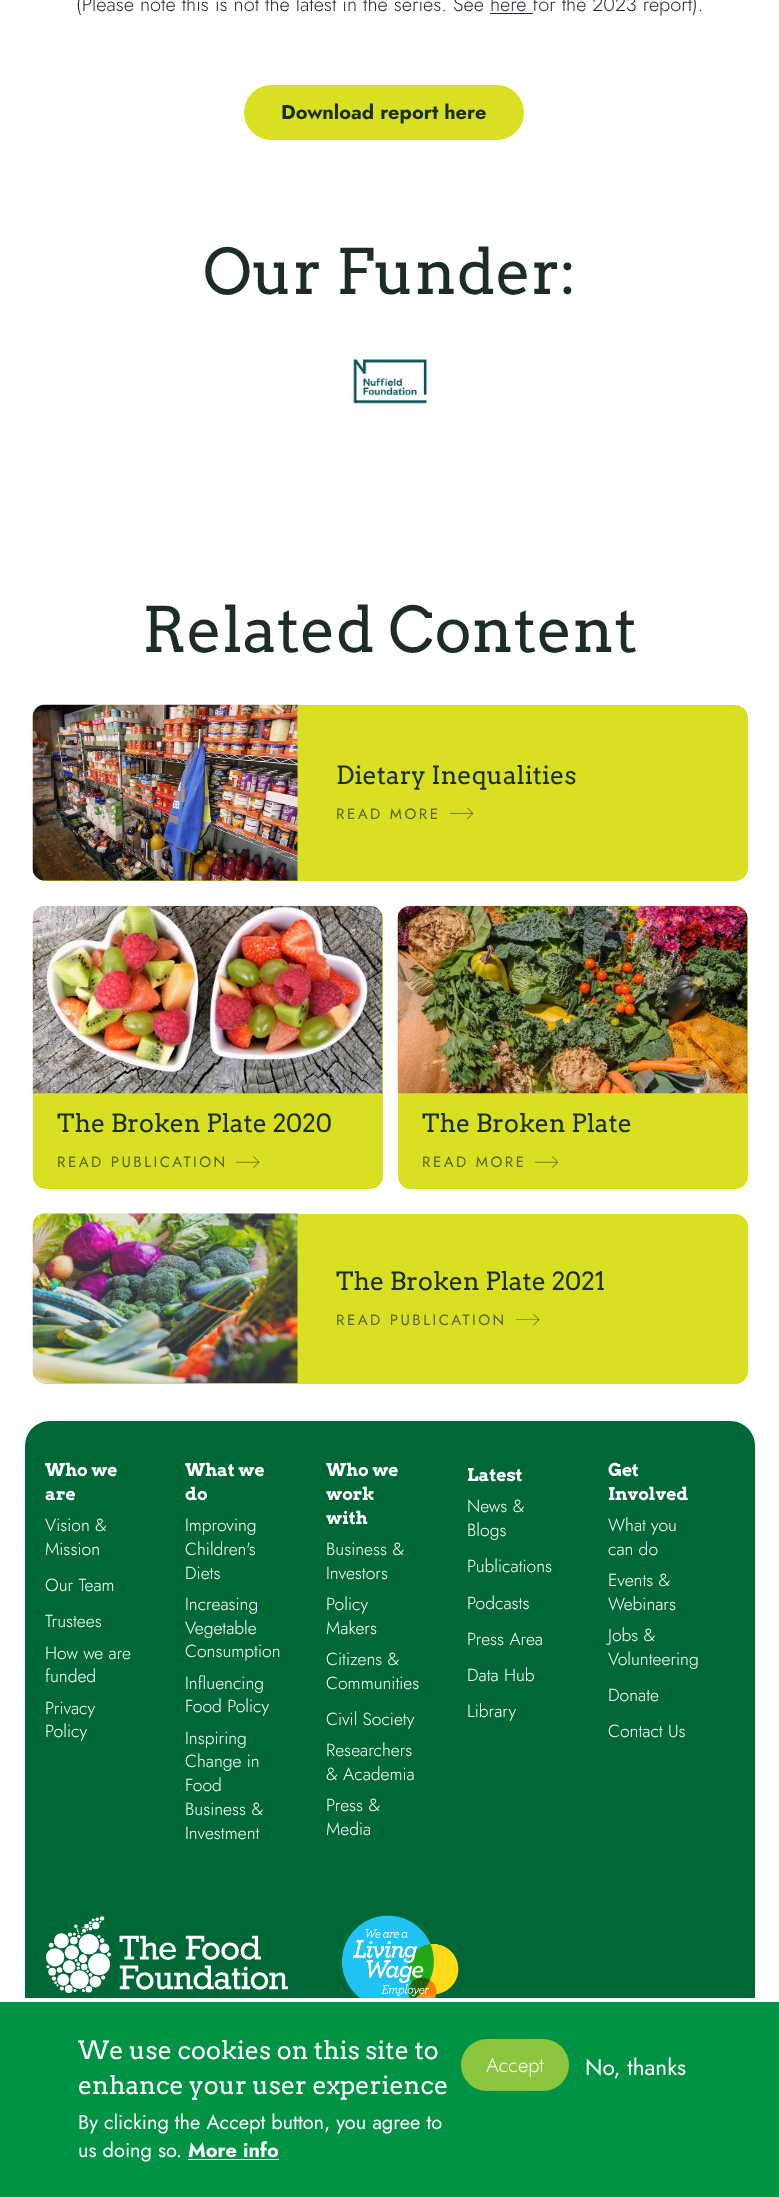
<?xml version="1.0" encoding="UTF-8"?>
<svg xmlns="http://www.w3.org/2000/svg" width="779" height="2197">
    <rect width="100%" height="100%" fill="#FFFFFF"/>
    <text x="76" y="11" font-family="Jost" font-size="20" font-weight="300" fill="#1C2D24">(Please note this is not the latest in the series. See here for the 2023 report).</text>
    <rect x="490" y="13" width="43" height="1" fill="#1C2D24"/>
    <rect x="244" y="85" width="280" height="55" rx="27.5" fill="#D9E021"/>
    <text x="281" y="119" font-family="Jost" font-size="20" font-weight="700" fill="#1C2D24">Download report here</text>
    <text x="203" y="294" font-family="Arvo" font-size="62.5" fill="#1C2D24">Our Funder:</text>
    <image x="353" y="359" width="74" height="45" href="img_01.png"/>
    <text x="142" y="652" font-family="Arvo" font-size="62.5" fill="#1C2D24">Related Content</text>
    <rect x="33" y="705" width="715" height="176" rx="13" fill="#D9E021"/>
    <image x="32" y="704" width="266" height="177" href="img_02.png"/>
    <text x="336" y="784" font-family="Arvo" font-size="25" fill="#1C2D24">Dietary Inequalities</text>
    <image x="450" y="807" width="23" height="13" href="img_03.png"/>
    <text x="336" y="819" font-family="Jost" font-size="15" letter-spacing="2.5" fill="#556323">READ MORE</text>
    <rect x="33" y="906" width="350" height="283" rx="13" fill="#D9E021"/>
    <image x="32" y="905" width="351" height="189" href="img_04.png"/>
    <text x="57" y="1132" font-family="Arvo" font-size="25" fill="#1C2D24">The Broken Plate 2020</text>
    <image x="236" y="1156" width="24" height="12" href="img_05.png"/>
    <text x="57" y="1167" font-family="Jost" font-size="15" letter-spacing="2.5" fill="#556323">READ PUBLICATION</text>
    <rect x="398" y="906" width="350" height="283" rx="13" fill="#D9E021"/>
    <image x="397" y="905" width="351" height="189" href="img_06.png"/>
    <text x="422" y="1132" font-family="Arvo" font-size="25" fill="#1C2D24">The Broken Plate</text>
    <image x="535" y="1156" width="23" height="12" href="img_07.png"/>
    <text x="422" y="1167" font-family="Jost" font-size="15" letter-spacing="2.5" fill="#556323">READ MORE</text>
    <rect x="33" y="1214" width="715" height="170" rx="13" fill="#D9E021"/>
    <image x="32" y="1213" width="266" height="171" href="img_08.png"/>
    <text x="336" y="1290" font-family="Arvo" font-size="25" fill="#1C2D24">The Broken Plate 2021</text>
    <image x="516" y="1313" width="24" height="13" href="img_09.png"/>
    <text x="336" y="1325" font-family="Jost" font-size="15" letter-spacing="2.5" fill="#556323">READ PUBLICATION</text>
    <path d="M 50 1421 H 730 C 744 1421 755 1432 755 1446 V 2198 H 25 V 1446 C 25 1432 36 1421 50 1421 Z" fill="#006837"/>
    <text font-family="Arvo" font-size="17.5" font-weight="700" fill="#FFFFFF">
        <tspan x="45" y="1476">Who we</tspan>
        <tspan x="45" y="1500">are</tspan>
    </text>
    <text font-family="Jost" font-size="17.5" font-weight="300" fill="#FFFFFF">
        <tspan x="45" y="1531">Vision &amp;</tspan>
        <tspan x="45" y="1555">Mission</tspan>
    </text>
    <text x="45" y="1591" font-family="Jost" font-size="17.5" font-weight="300" fill="#FFFFFF">Our Team</text>
    <text font-family="Jost" font-size="17.5" font-weight="300" fill="#FFFFFF">
        <tspan x="45" y="1627">Trustees</tspan>
        <tspan x="45" y="1659">How we are</tspan>
        <tspan x="45" y="1682">funded</tspan>
        <tspan x="45" y="1714">Privacy</tspan>
        <tspan x="45" y="1737">Policy</tspan>
    </text>
    <text font-family="Arvo" font-size="17.5" font-weight="700" fill="#FFFFFF">
        <tspan x="185" y="1476">What we</tspan>
        <tspan x="185" y="1500">do</tspan>
    </text>
    <text font-family="Jost" font-size="17.5" font-weight="300" fill="#FFFFFF">
        <tspan x="185" y="1531">Improving</tspan>
        <tspan x="185" y="1555">Children's</tspan>
        <tspan x="185" y="1579">Diets</tspan>
        <tspan x="185" y="1610">Increasing</tspan>
        <tspan x="185" y="1634">Vegetable</tspan>
        <tspan x="185" y="1657">Consumption</tspan>
        <tspan x="185" y="1689">Influencing</tspan>
        <tspan x="185" y="1712">Food Policy</tspan>
        <tspan x="185" y="1744">Inspiring</tspan>
        <tspan x="185" y="1767">Change in</tspan>
        <tspan x="185" y="1791">Food</tspan>
        <tspan x="185" y="1815">Business &amp;</tspan>
        <tspan x="185" y="1839">Investment</tspan>
    </text>
    <text font-family="Arvo" font-size="17.5" font-weight="700" fill="#FFFFFF">
        <tspan x="326" y="1476">Who we</tspan>
        <tspan x="326" y="1500">work</tspan>
        <tspan x="326" y="1524">with</tspan>
    </text>
    <text font-family="Jost" font-size="17.5" font-weight="300" fill="#FFFFFF">
        <tspan x="326" y="1555">Business &amp;</tspan>
        <tspan x="326" y="1579">Investors</tspan>
        <tspan x="326" y="1610">Policy</tspan>
        <tspan x="326" y="1634">Makers</tspan>
        <tspan x="326" y="1665">Citizens &amp;</tspan>
        <tspan x="326" y="1689">Communities</tspan>
    </text>
    <text font-family="Jost" font-size="17.5" font-weight="300" fill="#FFFFFF">
        <tspan x="326" y="1725">Civil Society</tspan>
        <tspan x="326" y="1756">Researchers</tspan>
        <tspan x="326" y="1780">&amp; Academia</tspan>
        <tspan x="326" y="1811">Press &amp;</tspan>
        <tspan x="326" y="1835">Media</tspan>
    </text>
    <text x="467" y="1481" font-family="Arvo" font-size="17.5" font-weight="700" fill="#FFFFFF">Latest</text>
    <text font-family="Jost" font-size="17.5" font-weight="300" fill="#FFFFFF">
        <tspan x="467" y="1512">News &amp;</tspan>
        <tspan x="467" y="1536">Blogs</tspan>
    </text>
    <text x="467" y="1572" font-family="Jost" font-size="17.5" font-weight="300" fill="#FFFFFF">Publications</text>
    <text x="467" y="1609" font-family="Jost" font-size="17.5" font-weight="300" fill="#FFFFFF">Podcasts</text>
    <text x="467" y="1645" font-family="Jost" font-size="17.5" font-weight="300" fill="#FFFFFF">Press Area</text>
    <text x="467" y="1681" font-family="Jost" font-size="17.5" font-weight="300" fill="#FFFFFF">Data Hub</text>
    <text x="467" y="1717" font-family="Jost" font-size="17.5" font-weight="300" fill="#FFFFFF">Library</text>
    <text font-family="Arvo" font-size="17.5" font-weight="700" fill="#FFFFFF">
        <tspan x="608" y="1476">Get</tspan>
        <tspan x="608" y="1500">Involved</tspan>
    </text>
    <text font-family="Jost" font-size="17.5" font-weight="300" fill="#FFFFFF">
        <tspan x="608" y="1531">What you</tspan>
        <tspan x="608" y="1555">can do</tspan>
        <tspan x="608" y="1586">Events &amp;</tspan>
        <tspan x="608" y="1610">Webinars</tspan>
        <tspan x="608" y="1641">Jobs &amp;</tspan>
        <tspan x="608" y="1665">Volunteering</tspan>
    </text>
    <text x="608" y="1701" font-family="Jost" font-size="17.5" font-weight="300" fill="#FFFFFF">Donate</text>
    <text x="608" y="1737" font-family="Jost" font-size="17.5" font-weight="300" fill="#FFFFFF">Contact Us</text>
    <image x="45" y="1916" width="243" height="77" href="img_10.png"/>
    <image x="341" y="1915" width="118" height="83" href="img_11.png"/>
    <rect x="0" y="2002" width="779" height="195" fill="#009245"/>
    <rect x="25" y="1998" width="730" height="4" fill="#FFFFFF"/>
    <text font-family="Arvo" font-size="25" fill="#FFFFFF">
        <tspan x="78" y="2059">We use cookies on this site to</tspan>
        <tspan x="78" y="2094">enhance your user experience</tspan>
    </text>
    <text font-family="Jost" font-size="20" fill="#FFFFFF">
        <tspan x="78" y="2129">By clicking the Accept button, you agree to</tspan>
        <tspan x="78" y="2157">us doing so.</tspan>
    </text>
    <text x="188" y="2157" font-family="Jost" font-size="20" font-weight="700" fill="#FFFFFF">More info</text>
    <rect x="188" y="2159" width="91" height="1" fill="#FFFFFF"/>
    <rect x="461" y="2039" width="108" height="52" rx="26" fill="#8CC63F"/>
    <text x="486" y="2072" font-family="Jost" font-size="20" font-weight="300" fill="#FFFFFF">Accept</text>
    <text x="585" y="2075" font-family="Jost" font-size="22.5" fill="#FFFFFF">No, thanks</text>
</svg>
